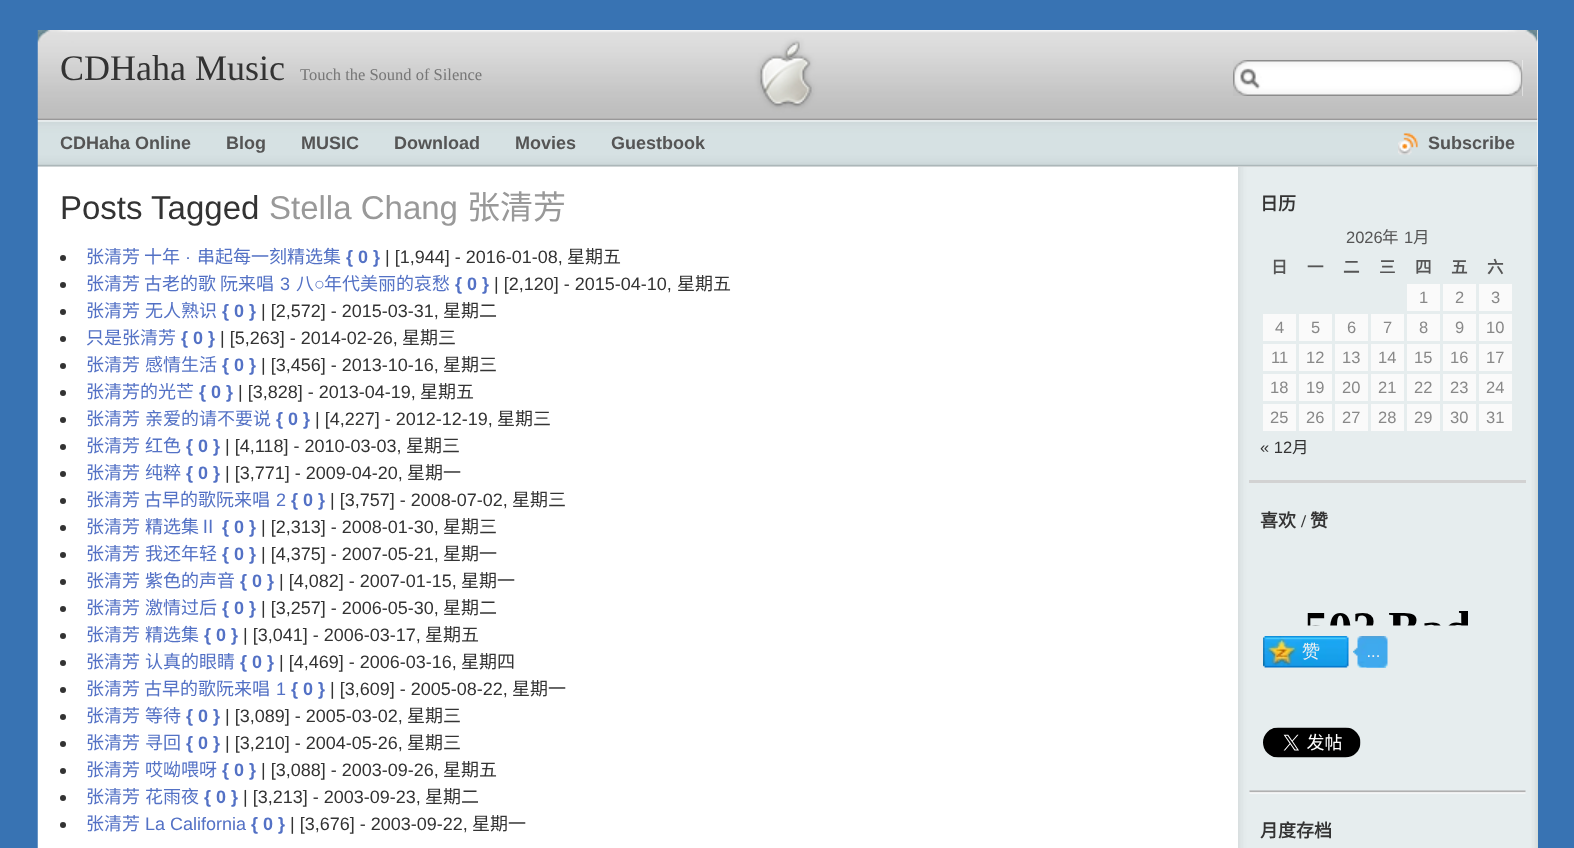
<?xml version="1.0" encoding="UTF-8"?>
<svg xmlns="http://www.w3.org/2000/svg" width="1574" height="848">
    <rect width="100%" height="100%" fill="#3873B3"/>
    <rect x="1537" y="167" width="1" height="681" fill="#D6DED4"/>
    <image x="37" y="166" width="1501" height="682" href="img_05.png"/>
    <rect x="38" y="30" width="1500" height="137" fill="#FAFAFA"/>
    <image x="37" y="30" width="1501" height="89" href="img_01.png"/>
    <text x="60" y="80" font-family="Liberation Serif" font-size="36" fill="#333333">CDHaha Music</text>
    <text x="300" y="80" font-family="Liberation Serif" font-size="16.5" fill="#777777">Touch the Sound of Silence</text>
    <rect x="1522" y="60" width="1" height="36" fill="#FAFAFA"/>
    <image x="1233" y="60" width="290" height="36" href="img_02.png"/>
    <image x="37" y="118" width="1501" height="49" href="img_03.png"/>
    <text x="60" y="149" font-family="Liberation Sans" font-size="18" font-weight="700" fill="#555555">CDHaha Online</text>
    <text x="226" y="149" font-family="Liberation Sans" font-size="18" font-weight="700" fill="#555555">Blog</text>
    <text x="301" y="149" font-family="Liberation Sans" font-size="18" font-weight="700" fill="#555555">MUSIC</text>
    <text x="394" y="149" font-family="Liberation Sans" font-size="18" font-weight="700" fill="#555555">Download</text>
    <text x="515" y="149" font-family="Liberation Sans" font-size="18" font-weight="700" fill="#555555">Movies</text>
    <text x="611" y="149" font-family="Liberation Sans" font-size="18" font-weight="700" fill="#555555">Guestbook</text>
    <image x="1398" y="133" width="20" height="22" href="img_04.png"/>
    <text x="1428" y="149" font-family="Liberation Sans" font-size="18" font-weight="700" fill="#555555">Subscribe</text>
    <rect x="1237" y="167" width="1" height="681" fill="#FFFFFF"/>
    <text x="60" y="219" font-family="Liberation Sans" font-size="33" fill="#333333">Posts Tagged</text>
    <text x="269" y="219" font-family="Liberation Sans" font-size="33" fill="#999999">Stella Chang</text>
    <text x="467" y="219" font-family="Noto Sans CJK SC" font-size="33" fill="#999999">张清芳</text>
    <circle cx="63" cy="258" r="3" fill="#333333"/>
    <text x="86" y="263" font-family="Noto Sans CJK SC" font-size="18" fill="#5371C5">张清芳 十年</text>
    <text x="185" y="263" font-family="Liberation Sans" font-size="18" fill="#5371C5">·</text>
    <text x="197" y="263" font-family="Noto Sans CJK SC" font-size="18" fill="#5371C5">串起每一刻精选集</text>
    <text x="346" y="263" font-family="Liberation Sans" font-size="18" font-weight="700" fill="#5371C5">{ 0 }</text>
    <text x="385" y="263" font-family="Liberation Sans" font-size="18" fill="#333333">| [1,944] - 2016-01-08,</text>
    <text x="567" y="263" font-family="Noto Sans CJK SC" font-size="18" fill="#333333">星期五</text>
    <circle cx="63" cy="285" r="3" fill="#333333"/>
    <text x="86" y="290" font-family="Noto Sans CJK SC" font-size="18" fill="#5371C5">张清芳 古老的歌 阮来唱</text>
    <text x="280" y="290" font-family="Liberation Sans" font-size="18" fill="#5371C5">3</text>
    <text x="296" y="290" font-family="Noto Sans CJK SC" font-size="18" fill="#5371C5">八</text>
    <text x="314" y="290" font-family="Liberation Sans" font-size="18" fill="#5371C5">○</text>
    <text x="324" y="290" font-family="Noto Sans CJK SC" font-size="18" fill="#5371C5">年代美丽的哀愁</text>
    <text x="455" y="290" font-family="Liberation Sans" font-size="18" font-weight="700" fill="#5371C5">{ 0 }</text>
    <text x="494" y="290" font-family="Liberation Sans" font-size="18" fill="#333333">| [2,120] - 2015-04-10,</text>
    <text x="677" y="290" font-family="Noto Sans CJK SC" font-size="18" fill="#333333">星期五</text>
    <circle cx="63" cy="312" r="3" fill="#333333"/>
    <text x="86" y="317" word-spacing="1" font-family="Noto Sans CJK SC" font-size="18" fill="#5371C5">张清芳 无人熟识</text>
    <text x="222" y="317" font-family="Liberation Sans" font-size="18" font-weight="700" fill="#5371C5">{ 0 }</text>
    <text x="261" y="317" font-family="Liberation Sans" font-size="18" fill="#333333">| [2,572] - 2015-03-31,</text>
    <text x="443" y="317" font-family="Noto Sans CJK SC" font-size="18" fill="#333333">星期二</text>
    <circle cx="63" cy="339" r="3" fill="#333333"/>
    <text x="86" y="344" font-family="Noto Sans CJK SC" font-size="18" fill="#5371C5">只是张清芳</text>
    <text x="181" y="344" font-family="Liberation Sans" font-size="18" font-weight="700" fill="#5371C5">{ 0 }</text>
    <text x="220" y="344" font-family="Liberation Sans" font-size="18" fill="#333333">| [5,263] - 2014-02-26,</text>
    <text x="402" y="344" font-family="Noto Sans CJK SC" font-size="18" fill="#333333">星期三</text>
    <circle cx="63" cy="366" r="3" fill="#333333"/>
    <text x="86" y="371" word-spacing="1" font-family="Noto Sans CJK SC" font-size="18" fill="#5371C5">张清芳 感情生活</text>
    <text x="222" y="371" font-family="Liberation Sans" font-size="18" font-weight="700" fill="#5371C5">{ 0 }</text>
    <text x="261" y="371" font-family="Liberation Sans" font-size="18" fill="#333333">| [3,456] - 2013-10-16,</text>
    <text x="443" y="371" font-family="Noto Sans CJK SC" font-size="18" fill="#333333">星期三</text>
    <circle cx="63" cy="393" r="3" fill="#333333"/>
    <text x="86" y="398" font-family="Noto Sans CJK SC" font-size="18" fill="#5371C5">张清芳的光芒</text>
    <text x="199" y="398" font-family="Liberation Sans" font-size="18" font-weight="700" fill="#5371C5">{ 0 }</text>
    <text x="238" y="398" font-family="Liberation Sans" font-size="18" fill="#333333">| [3,828] - 2013-04-19,</text>
    <text x="420" y="398" font-family="Noto Sans CJK SC" font-size="18" fill="#333333">星期五</text>
    <circle cx="63" cy="420" r="3" fill="#333333"/>
    <text x="86" y="425" word-spacing="1" font-family="Noto Sans CJK SC" font-size="18" fill="#5371C5">张清芳 亲爱的请不要说</text>
    <text x="276" y="425" font-family="Liberation Sans" font-size="18" font-weight="700" fill="#5371C5">{ 0 }</text>
    <text x="315" y="425" font-family="Liberation Sans" font-size="18" fill="#333333">| [4,227] - 2012-12-19,</text>
    <text x="497" y="425" font-family="Noto Sans CJK SC" font-size="18" fill="#333333">星期三</text>
    <circle cx="63" cy="447" r="3" fill="#333333"/>
    <text x="86" y="452" word-spacing="1" font-family="Noto Sans CJK SC" font-size="18" fill="#5371C5">张清芳 红色</text>
    <text x="186" y="452" font-family="Liberation Sans" font-size="18" font-weight="700" fill="#5371C5">{ 0 }</text>
    <text x="225" y="452" font-family="Liberation Sans" font-size="18" fill="#333333">| [4,118] - 2010-03-03,</text>
    <text x="406" y="452" font-family="Noto Sans CJK SC" font-size="18" fill="#333333">星期三</text>
    <circle cx="63" cy="474" r="3" fill="#333333"/>
    <text x="86" y="479" word-spacing="1" font-family="Noto Sans CJK SC" font-size="18" fill="#5371C5">张清芳 纯粹</text>
    <text x="186" y="479" font-family="Liberation Sans" font-size="18" font-weight="700" fill="#5371C5">{ 0 }</text>
    <text x="225" y="479" font-family="Liberation Sans" font-size="18" fill="#333333">| [3,771] - 2009-04-20,</text>
    <text x="407" y="479" font-family="Noto Sans CJK SC" font-size="18" fill="#333333">星期一</text>
    <circle cx="63" cy="501" r="3" fill="#333333"/>
    <text x="86" y="506" font-family="Noto Sans CJK SC" font-size="18" fill="#5371C5">张清芳 古早的歌阮来唱</text>
    <text x="276" y="506" font-family="Liberation Sans" font-size="18" fill="#5371C5">2</text>
    <text x="291" y="506" font-family="Liberation Sans" font-size="18" font-weight="700" fill="#5371C5">{ 0 }</text>
    <text x="330" y="506" font-family="Liberation Sans" font-size="18" fill="#333333">| [3,757] - 2008-07-02,</text>
    <text x="512" y="506" font-family="Noto Sans CJK SC" font-size="18" fill="#333333">星期三</text>
    <circle cx="63" cy="528" r="3" fill="#333333"/>
    <text x="86" y="533" word-spacing="1" font-family="Noto Sans CJK SC" font-size="18" fill="#5371C5">张清芳 精选集Ⅱ</text>
    <text x="222" y="533" font-family="Liberation Sans" font-size="18" font-weight="700" fill="#5371C5">{ 0 }</text>
    <text x="261" y="533" font-family="Liberation Sans" font-size="18" fill="#333333">| [2,313] - 2008-01-30,</text>
    <text x="443" y="533" font-family="Noto Sans CJK SC" font-size="18" fill="#333333">星期三</text>
    <circle cx="63" cy="555" r="3" fill="#333333"/>
    <text x="86" y="560" word-spacing="1" font-family="Noto Sans CJK SC" font-size="18" fill="#5371C5">张清芳 我还年轻</text>
    <text x="222" y="560" font-family="Liberation Sans" font-size="18" font-weight="700" fill="#5371C5">{ 0 }</text>
    <text x="261" y="560" font-family="Liberation Sans" font-size="18" fill="#333333">| [4,375] - 2007-05-21,</text>
    <text x="443" y="560" font-family="Noto Sans CJK SC" font-size="18" fill="#333333">星期一</text>
    <circle cx="63" cy="582" r="3" fill="#333333"/>
    <text x="86" y="587" word-spacing="1" font-family="Noto Sans CJK SC" font-size="18" fill="#5371C5">张清芳 紫色的声音</text>
    <text x="240" y="587" font-family="Liberation Sans" font-size="18" font-weight="700" fill="#5371C5">{ 0 }</text>
    <text x="279" y="587" font-family="Liberation Sans" font-size="18" fill="#333333">| [4,082] - 2007-01-15,</text>
    <text x="461" y="587" font-family="Noto Sans CJK SC" font-size="18" fill="#333333">星期一</text>
    <circle cx="63" cy="609" r="3" fill="#333333"/>
    <text x="86" y="614" word-spacing="1" font-family="Noto Sans CJK SC" font-size="18" fill="#5371C5">张清芳 激情过后</text>
    <text x="222" y="614" font-family="Liberation Sans" font-size="18" font-weight="700" fill="#5371C5">{ 0 }</text>
    <text x="261" y="614" font-family="Liberation Sans" font-size="18" fill="#333333">| [3,257] - 2006-05-30,</text>
    <text x="443" y="614" font-family="Noto Sans CJK SC" font-size="18" fill="#333333">星期二</text>
    <circle cx="63" cy="636" r="3" fill="#333333"/>
    <text x="86" y="641" word-spacing="1" font-family="Noto Sans CJK SC" font-size="18" fill="#5371C5">张清芳 精选集</text>
    <text x="204" y="641" font-family="Liberation Sans" font-size="18" font-weight="700" fill="#5371C5">{ 0 }</text>
    <text x="243" y="641" font-family="Liberation Sans" font-size="18" fill="#333333">| [3,041] - 2006-03-17,</text>
    <text x="425" y="641" font-family="Noto Sans CJK SC" font-size="18" fill="#333333">星期五</text>
    <circle cx="63" cy="663" r="3" fill="#333333"/>
    <text x="86" y="668" word-spacing="1" font-family="Noto Sans CJK SC" font-size="18" fill="#5371C5">张清芳 认真的眼睛</text>
    <text x="240" y="668" font-family="Liberation Sans" font-size="18" font-weight="700" fill="#5371C5">{ 0 }</text>
    <text x="279" y="668" font-family="Liberation Sans" font-size="18" fill="#333333">| [4,469] - 2006-03-16,</text>
    <text x="461" y="668" font-family="Noto Sans CJK SC" font-size="18" fill="#333333">星期四</text>
    <circle cx="63" cy="690" r="3" fill="#333333"/>
    <text x="86" y="695" font-family="Noto Sans CJK SC" font-size="18" fill="#5371C5">张清芳 古早的歌阮来唱</text>
    <text x="276" y="695" font-family="Liberation Sans" font-size="18" fill="#5371C5">1</text>
    <text x="291" y="695" font-family="Liberation Sans" font-size="18" font-weight="700" fill="#5371C5">{ 0 }</text>
    <text x="330" y="695" font-family="Liberation Sans" font-size="18" fill="#333333">| [3,609] - 2005-08-22,</text>
    <text x="512" y="695" font-family="Noto Sans CJK SC" font-size="18" fill="#333333">星期一</text>
    <circle cx="63" cy="717" r="3" fill="#333333"/>
    <text x="86" y="722" word-spacing="1" font-family="Noto Sans CJK SC" font-size="18" fill="#5371C5">张清芳 等待</text>
    <text x="186" y="722" font-family="Liberation Sans" font-size="18" font-weight="700" fill="#5371C5">{ 0 }</text>
    <text x="225" y="722" font-family="Liberation Sans" font-size="18" fill="#333333">| [3,089] - 2005-03-02,</text>
    <text x="407" y="722" font-family="Noto Sans CJK SC" font-size="18" fill="#333333">星期三</text>
    <circle cx="63" cy="744" r="3" fill="#333333"/>
    <text x="86" y="749" word-spacing="1" font-family="Noto Sans CJK SC" font-size="18" fill="#5371C5">张清芳 寻回</text>
    <text x="186" y="749" font-family="Liberation Sans" font-size="18" font-weight="700" fill="#5371C5">{ 0 }</text>
    <text x="225" y="749" font-family="Liberation Sans" font-size="18" fill="#333333">| [3,210] - 2004-05-26,</text>
    <text x="407" y="749" font-family="Noto Sans CJK SC" font-size="18" fill="#333333">星期三</text>
    <circle cx="63" cy="771" r="3" fill="#333333"/>
    <text x="86" y="776" word-spacing="1" font-family="Noto Sans CJK SC" font-size="18" fill="#5371C5">张清芳 哎呦喂呀</text>
    <text x="222" y="776" font-family="Liberation Sans" font-size="18" font-weight="700" fill="#5371C5">{ 0 }</text>
    <text x="261" y="776" font-family="Liberation Sans" font-size="18" fill="#333333">| [3,088] - 2003-09-26,</text>
    <text x="443" y="776" font-family="Noto Sans CJK SC" font-size="18" fill="#333333">星期五</text>
    <circle cx="63" cy="798" r="3" fill="#333333"/>
    <text x="86" y="803" word-spacing="1" font-family="Noto Sans CJK SC" font-size="18" fill="#5371C5">张清芳 花雨夜</text>
    <text x="204" y="803" font-family="Liberation Sans" font-size="18" font-weight="700" fill="#5371C5">{ 0 }</text>
    <text x="243" y="803" font-family="Liberation Sans" font-size="18" fill="#333333">| [3,213] - 2003-09-23,</text>
    <text x="425" y="803" font-family="Noto Sans CJK SC" font-size="18" fill="#333333">星期二</text>
    <circle cx="63" cy="825" r="3" fill="#333333"/>
    <text x="86" y="830" font-family="Noto Sans CJK SC" font-size="18" fill="#5371C5">张清芳</text>
    <text x="145" y="830" font-family="Liberation Sans" font-size="18" fill="#5371C5">La California</text>
    <text x="251" y="830" font-family="Liberation Sans" font-size="18" font-weight="700" fill="#5371C5">{ 0 }</text>
    <text x="290" y="830" font-family="Liberation Sans" font-size="18" fill="#333333">| [3,676] - 2003-09-22,</text>
    <text x="472" y="830" font-family="Noto Sans CJK SC" font-size="18" fill="#333333">星期一</text>
    <rect x="1249" y="480" width="277" height="3" fill="#D2D2D2"/>
    <text x="1260" y="210" font-family="Noto Sans CJK SC" font-size="18" font-weight="700" fill="#333333">日历</text>
    <text x="1346" y="243" font-family="Liberation Sans" font-size="16.5" fill="#555555">2026</text>
    <text x="1382" y="243" font-family="Noto Sans CJK SC" font-size="16.5" fill="#555555">年</text>
    <text x="1404" y="243" font-family="Liberation Sans" font-size="16.5" fill="#555555">1</text>
    <text x="1413" y="243" font-family="Noto Sans CJK SC" font-size="16.5" fill="#555555">月</text>
    <text x="1271" y="273" font-family="Noto Sans CJK SC" font-size="16.5" font-weight="700" fill="#555555">日</text>
    <text x="1307" y="273" font-family="Noto Sans CJK SC" font-size="16.5" font-weight="700" fill="#555555">一</text>
    <text x="1343" y="273" font-family="Noto Sans CJK SC" font-size="16.5" font-weight="700" fill="#555555">二</text>
    <text x="1379" y="273" font-family="Noto Sans CJK SC" font-size="16.5" font-weight="700" fill="#555555">三</text>
    <text x="1415" y="273" font-family="Noto Sans CJK SC" font-size="16.5" font-weight="700" fill="#555555">四</text>
    <text x="1451" y="273" font-family="Noto Sans CJK SC" font-size="16.5" font-weight="700" fill="#555555">五</text>
    <text x="1487" y="273" font-family="Noto Sans CJK SC" font-size="16.5" font-weight="700" fill="#555555">六</text>
    <rect x="1407" y="284" width="33" height="27" fill="#FAFAFA"/>
    <text x="1419" y="303" font-family="Liberation Sans" font-size="16.5" fill="#888888">1</text>
    <rect x="1443" y="284" width="33" height="27" fill="#FAFAFA"/>
    <text x="1455" y="303" font-family="Liberation Sans" font-size="16.5" fill="#888888">2</text>
    <rect x="1479" y="284" width="33" height="27" fill="#FAFAFA"/>
    <text x="1491" y="303" font-family="Liberation Sans" font-size="16.5" fill="#888888">3</text>
    <rect x="1263" y="314" width="33" height="27" fill="#FAFAFA"/>
    <text x="1275" y="333" font-family="Liberation Sans" font-size="16.5" fill="#888888">4</text>
    <rect x="1299" y="314" width="33" height="27" fill="#FAFAFA"/>
    <text x="1311" y="333" font-family="Liberation Sans" font-size="16.5" fill="#888888">5</text>
    <rect x="1335" y="314" width="33" height="27" fill="#FAFAFA"/>
    <text x="1347" y="333" font-family="Liberation Sans" font-size="16.5" fill="#888888">6</text>
    <rect x="1371" y="314" width="33" height="27" fill="#FAFAFA"/>
    <text x="1383" y="333" font-family="Liberation Sans" font-size="16.5" fill="#888888">7</text>
    <rect x="1407" y="314" width="33" height="27" fill="#FAFAFA"/>
    <text x="1419" y="333" font-family="Liberation Sans" font-size="16.5" fill="#888888">8</text>
    <rect x="1443" y="314" width="33" height="27" fill="#FAFAFA"/>
    <text x="1455" y="333" font-family="Liberation Sans" font-size="16.5" fill="#888888">9</text>
    <rect x="1479" y="314" width="33" height="27" fill="#FAFAFA"/>
    <text x="1486" y="333" font-family="Liberation Sans" font-size="16.5" fill="#888888">10</text>
    <rect x="1263" y="344" width="33" height="27" fill="#FAFAFA"/>
    <text x="1271" y="363" font-family="Liberation Sans" font-size="16.5" fill="#888888">11</text>
    <rect x="1299" y="344" width="33" height="27" fill="#FAFAFA"/>
    <text x="1306" y="363" font-family="Liberation Sans" font-size="16.5" fill="#888888">12</text>
    <rect x="1335" y="344" width="33" height="27" fill="#FAFAFA"/>
    <text x="1342" y="363" font-family="Liberation Sans" font-size="16.5" fill="#888888">13</text>
    <rect x="1371" y="344" width="33" height="27" fill="#FAFAFA"/>
    <text x="1378" y="363" font-family="Liberation Sans" font-size="16.5" fill="#888888">14</text>
    <rect x="1407" y="344" width="33" height="27" fill="#FAFAFA"/>
    <text x="1414" y="363" font-family="Liberation Sans" font-size="16.5" fill="#888888">15</text>
    <rect x="1443" y="344" width="33" height="27" fill="#FAFAFA"/>
    <text x="1450" y="363" font-family="Liberation Sans" font-size="16.5" fill="#888888">16</text>
    <rect x="1479" y="344" width="33" height="27" fill="#FAFAFA"/>
    <text x="1486" y="363" font-family="Liberation Sans" font-size="16.5" fill="#888888">17</text>
    <rect x="1263" y="374" width="33" height="27" fill="#FAFAFA"/>
    <text x="1270" y="393" font-family="Liberation Sans" font-size="16.5" fill="#888888">18</text>
    <rect x="1299" y="374" width="33" height="27" fill="#FAFAFA"/>
    <text x="1306" y="393" font-family="Liberation Sans" font-size="16.5" fill="#888888">19</text>
    <rect x="1335" y="374" width="33" height="27" fill="#FAFAFA"/>
    <text x="1342" y="393" font-family="Liberation Sans" font-size="16.5" fill="#888888">20</text>
    <rect x="1371" y="374" width="33" height="27" fill="#FAFAFA"/>
    <text x="1378" y="393" font-family="Liberation Sans" font-size="16.5" fill="#888888">21</text>
    <rect x="1407" y="374" width="33" height="27" fill="#FAFAFA"/>
    <text x="1414" y="393" font-family="Liberation Sans" font-size="16.5" fill="#888888">22</text>
    <rect x="1443" y="374" width="33" height="27" fill="#FAFAFA"/>
    <text x="1450" y="393" font-family="Liberation Sans" font-size="16.5" fill="#888888">23</text>
    <rect x="1479" y="374" width="33" height="27" fill="#FAFAFA"/>
    <text x="1486" y="393" font-family="Liberation Sans" font-size="16.5" fill="#888888">24</text>
    <rect x="1263" y="404" width="33" height="27" fill="#FAFAFA"/>
    <text x="1270" y="423" font-family="Liberation Sans" font-size="16.5" fill="#888888">25</text>
    <rect x="1299" y="404" width="33" height="27" fill="#FAFAFA"/>
    <text x="1306" y="423" font-family="Liberation Sans" font-size="16.5" fill="#888888">26</text>
    <rect x="1335" y="404" width="33" height="27" fill="#FAFAFA"/>
    <text x="1342" y="423" font-family="Liberation Sans" font-size="16.5" fill="#888888">27</text>
    <rect x="1371" y="404" width="33" height="27" fill="#FAFAFA"/>
    <text x="1378" y="423" font-family="Liberation Sans" font-size="16.5" fill="#888888">28</text>
    <rect x="1407" y="404" width="33" height="27" fill="#FAFAFA"/>
    <text x="1414" y="423" font-family="Liberation Sans" font-size="16.5" fill="#888888">29</text>
    <rect x="1443" y="404" width="33" height="27" fill="#FAFAFA"/>
    <text x="1450" y="423" font-family="Liberation Sans" font-size="16.5" fill="#888888">30</text>
    <rect x="1479" y="404" width="33" height="27" fill="#FAFAFA"/>
    <text x="1486" y="423" font-family="Liberation Sans" font-size="16.5" fill="#888888">31</text>
    <text x="1260" y="453" font-family="Liberation Sans" font-size="16.5" fill="#333333">« 12</text>
    <text x="1292" y="453" font-family="Noto Sans CJK SC" font-size="16.5" fill="#333333">月</text>
    <image x="1249" y="790" width="277" height="4" href="img_06.png"/>
    <text x="1260" y="527" font-family="Noto Sans CJK SC" font-size="18" font-weight="700" fill="#333333">喜欢</text>
    <text x="1301" y="527" font-family="Liberation Serif" font-size="18" font-weight="700" fill="#333333">/</text>
    <text x="1310" y="527" font-family="Noto Sans CJK SC" font-size="18" font-weight="700" fill="#333333">赞</text>
    <image x="1307" y="611" width="161" height="15" href="img_07.png"/>
    <image x="1263" y="636" width="125" height="32" href="img_08.png"/>
    <image x="1263" y="727" width="98" height="31" href="img_09.png"/>
    <text x="1260" y="837" font-family="Noto Sans CJK SC" font-size="18" font-weight="700" fill="#333333">月度存档</text>
</svg>
